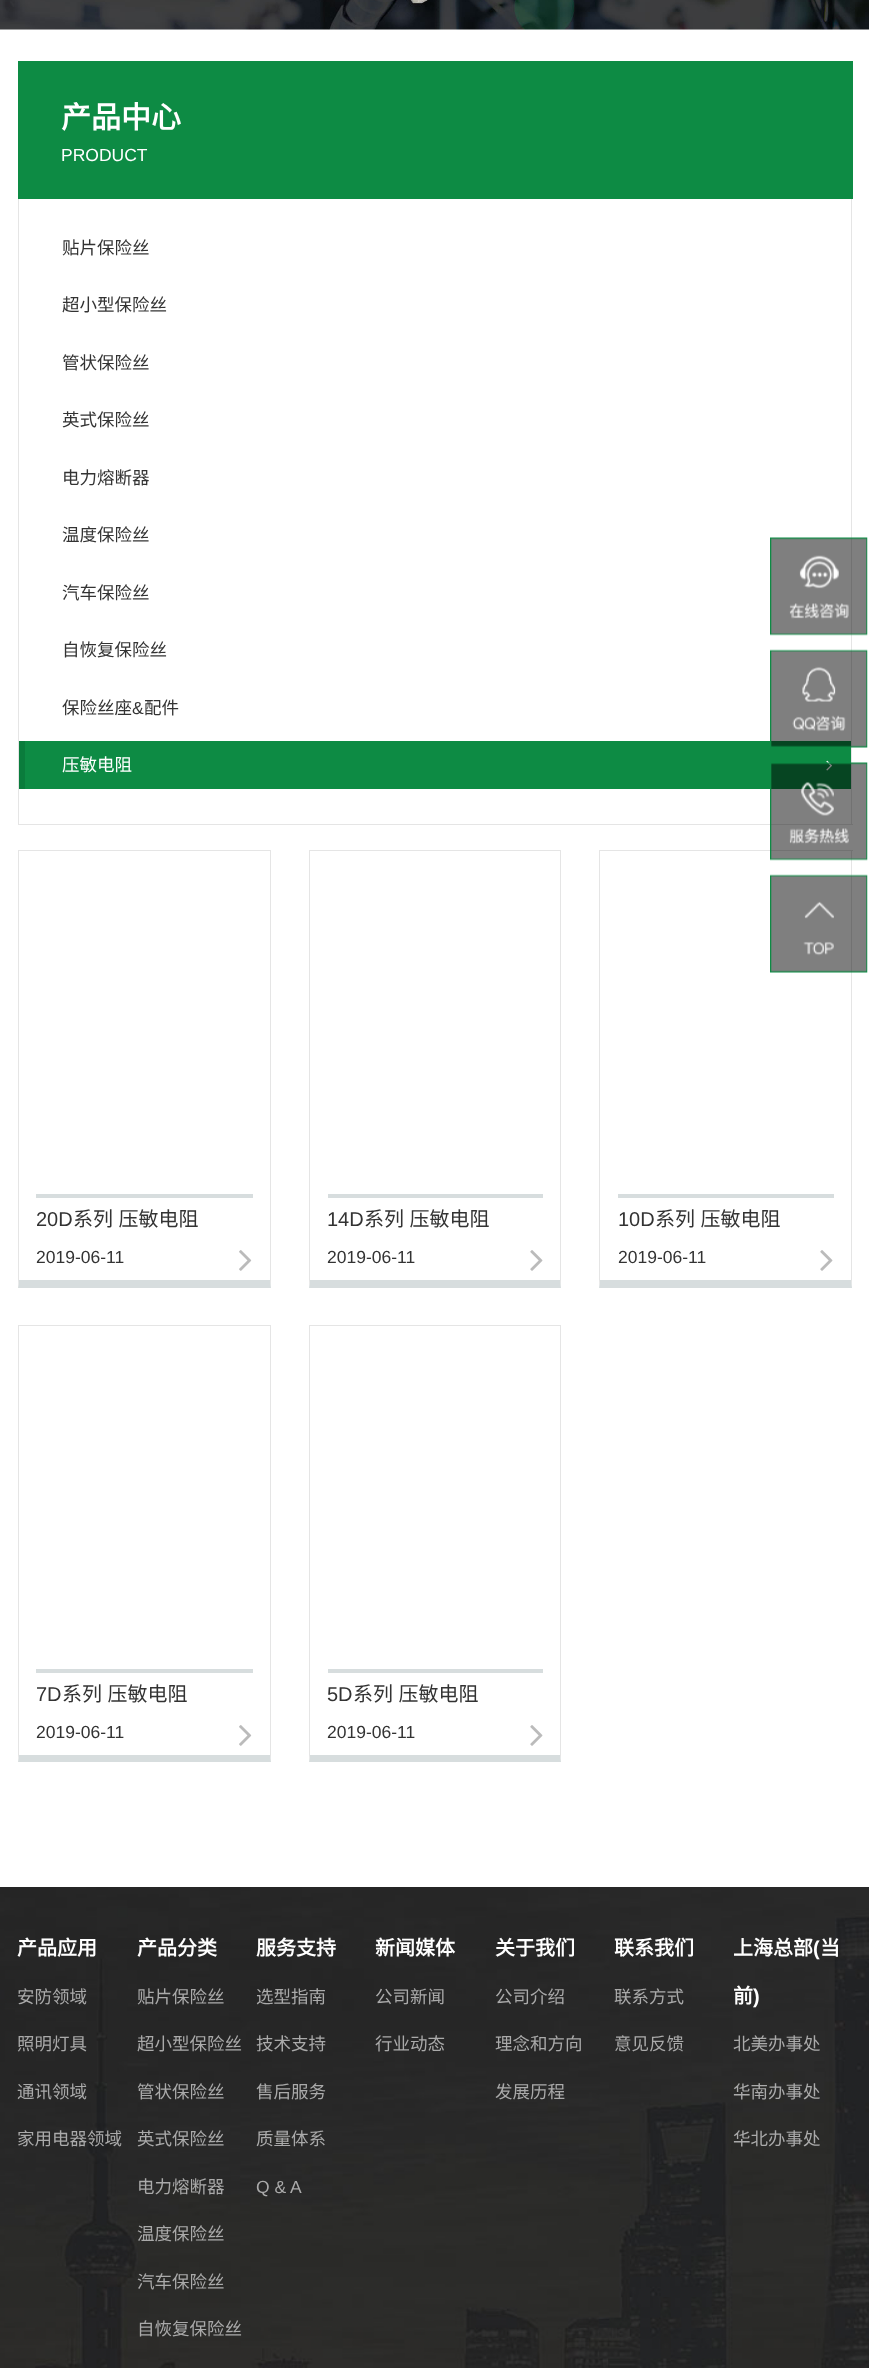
<?xml version="1.0" encoding="UTF-8"?>
<svg xmlns="http://www.w3.org/2000/svg" width="869" height="2368">
    <rect width="100%" height="100%" fill="#FFFFFF"/>
    <image x="0" y="0" width="869" height="30" href="img_01.png"/>
    <rect x="18" y="61" width="835" height="138" fill="#0D8B44"/>
    <text x="61" y="128" font-family="Noto Sans CJK SC" font-size="30" font-weight="700" fill="#FFFFFF">产品中心</text>
    <text x="61" y="161" font-family="Liberation Sans" font-size="17.5" fill="#FFFFFF">PRODUCT</text>
    <rect x="851" y="199" width="1" height="626" fill="#E5E5E5"/>
    <rect x="18" y="824" width="835" height="1" fill="#E5E5E5"/>
    <rect x="18" y="199" width="1" height="626" fill="#E5E5E5"/>
    <text x="62" y="254" font-family="Noto Sans CJK SC" font-size="17.5" fill="#333333">贴片保险丝</text>
    <text x="62" y="311" font-family="Noto Sans CJK SC" font-size="17.5" fill="#333333">超小型保险丝</text>
    <text x="62" y="369" font-family="Noto Sans CJK SC" font-size="17.5" fill="#333333">管状保险丝</text>
    <text x="62" y="426" font-family="Noto Sans CJK SC" font-size="17.5" fill="#333333">英式保险丝</text>
    <text x="62" y="484" font-family="Noto Sans CJK SC" font-size="17.5" fill="#333333">电力熔断器</text>
    <text x="62" y="541" font-family="Noto Sans CJK SC" font-size="17.5" fill="#333333">温度保险丝</text>
    <text x="62" y="599" font-family="Noto Sans CJK SC" font-size="17.5" fill="#333333">汽车保险丝</text>
    <text x="62" y="656" font-family="Noto Sans CJK SC" font-size="17.5" fill="#333333">自恢复保险丝</text>
    <text x="62" y="714" font-family="Noto Sans CJK SC" font-size="17.5" fill="#333333">保险丝座</text>
    <text x="132" y="714" font-family="Liberation Sans" font-size="17.5" fill="#333333">&amp;</text>
    <text x="144" y="714" font-family="Noto Sans CJK SC" font-size="17.5" fill="#333333">配件</text>
    <rect x="25" y="741" width="826" height="48" fill="#0D8B44"/>
    <rect x="19" y="741" width="6" height="48" fill="#0A7C3C"/>
    <text x="62" y="771" font-family="Noto Sans CJK SC" font-size="17.5" fill="#FFFFFF">压敏电阻</text>
    <image x="826" y="760" width="6" height="11" href="img_02.png"/>
    <rect x="18" y="850" width="253" height="1" fill="#E5E5E5"/>
    <path d="M 271 850 V 1288 L 270 1280 V 851 Z" fill="#E5E5E5"/>
    <path d="M 271 1288 H 18 L 19 1280 H 270 Z" fill="#D7DDDE"/>
    <path d="M 18 1288 V 850 L 19 851 V 1280 Z" fill="#E5E5E5"/>
    <rect x="36" y="1194" width="217" height="4" fill="#D7DDDE"/>
    <text x="36" y="1226" font-family="Liberation Sans" font-size="20" fill="#333333">20D</text>
    <text x="73" y="1226" word-spacing="1" font-family="Noto Sans CJK SC" font-size="20" fill="#333333">系列 压敏电阻</text>
    <text x="36" y="1263" font-family="Liberation Sans" font-size="17.5" fill="#333333">2019-06-11</text>
    <image x="239" y="1250" width="13" height="21" href="img_03.png"/>
    <rect x="309" y="850" width="252" height="1" fill="#E5E5E5"/>
    <path d="M 561 850 V 1288 L 560 1280 V 851 Z" fill="#E5E5E5"/>
    <path d="M 561 1288 H 309 L 310 1280 H 560 Z" fill="#D7DDDE"/>
    <path d="M 309 1288 V 850 L 310 851 V 1280 Z" fill="#E5E5E5"/>
    <rect x="328" y="1194" width="215" height="4" fill="#D7DDDE"/>
    <text x="327" y="1226" font-family="Liberation Sans" font-size="20" fill="#333333">14D</text>
    <text x="364" y="1226" word-spacing="1" font-family="Noto Sans CJK SC" font-size="20" fill="#333333">系列 压敏电阻</text>
    <text x="327" y="1263" font-family="Liberation Sans" font-size="17.5" fill="#333333">2019-06-11</text>
    <image x="530" y="1250" width="13" height="21" href="img_04.png"/>
    <rect x="599" y="850" width="254" height="1" fill="#E5E5E5"/>
    <path d="M 852 850 V 1288 L 851 1280 V 851 Z" fill="#E5E5E5"/>
    <path d="M 852 1288 H 599 L 600 1280 H 851 Z" fill="#D7DDDE"/>
    <path d="M 599 1288 V 850 L 600 851 V 1280 Z" fill="#E5E5E5"/>
    <rect x="618" y="1194" width="216" height="4" fill="#D7DDDE"/>
    <text x="618" y="1226" font-family="Liberation Sans" font-size="20" fill="#333333">10D</text>
    <text x="655" y="1226" word-spacing="1" font-family="Noto Sans CJK SC" font-size="20" fill="#333333">系列 压敏电阻</text>
    <text x="618" y="1263" font-family="Liberation Sans" font-size="17.5" fill="#333333">2019-06-11</text>
    <image x="820" y="1250" width="13" height="21" href="img_04.png"/>
    <rect x="18" y="1325" width="253" height="1" fill="#E5E5E5"/>
    <path d="M 271 1325 V 1762 L 270 1755 V 1326 Z" fill="#E5E5E5"/>
    <path d="M 271 1762 H 18 L 19 1755 H 270 Z" fill="#D7DDDE"/>
    <path d="M 18 1762 V 1325 L 19 1326 V 1755 Z" fill="#E5E5E5"/>
    <rect x="36" y="1669" width="217" height="4" fill="#D7DDDE"/>
    <text x="36" y="1701" font-family="Liberation Sans" font-size="20" fill="#333333">7D</text>
    <text x="62" y="1701" word-spacing="1" font-family="Noto Sans CJK SC" font-size="20" fill="#333333">系列 压敏电阻</text>
    <text x="36" y="1738" font-family="Liberation Sans" font-size="17.5" fill="#333333">2019-06-11</text>
    <image x="239" y="1725" width="13" height="21" href="img_03.png"/>
    <rect x="309" y="1325" width="252" height="1" fill="#E5E5E5"/>
    <path d="M 561 1325 V 1762 L 560 1755 V 1326 Z" fill="#E5E5E5"/>
    <path d="M 561 1762 H 309 L 310 1755 H 560 Z" fill="#D7DDDE"/>
    <path d="M 309 1762 V 1325 L 310 1326 V 1755 Z" fill="#E5E5E5"/>
    <rect x="328" y="1669" width="215" height="4" fill="#D7DDDE"/>
    <text x="327" y="1701" font-family="Liberation Sans" font-size="20" fill="#333333">5D</text>
    <text x="353" y="1701" word-spacing="1" font-family="Noto Sans CJK SC" font-size="20" fill="#333333">系列 压敏电阻</text>
    <text x="327" y="1738" font-family="Liberation Sans" font-size="17.5" fill="#333333">2019-06-11</text>
    <image x="530" y="1725" width="13" height="21" href="img_04.png"/>
    <image x="770" y="537" width="98" height="99" href="img_05.png"/>
    <image x="770" y="649" width="98" height="99" href="img_06.png"/>
    <image x="770" y="762" width="98" height="99" href="img_07.png"/>
    <image x="770" y="874" width="98" height="99" href="img_08.png"/>
    <image x="0" y="1887" width="869" height="481" href="img_09.png"/>
    <text x="17" y="1955" font-family="Noto Sans CJK SC" font-size="20" font-weight="700" fill="#FFFFFF">产品应用</text>
    <text x="17" y="2003" font-family="Noto Sans CJK SC" font-size="17.5" fill="#AAAAAA">安防领域</text>
    <text x="17" y="2050" font-family="Noto Sans CJK SC" font-size="17.5" fill="#AAAAAA">照明灯具</text>
    <text x="17" y="2098" font-family="Noto Sans CJK SC" font-size="17.5" fill="#AAAAAA">通讯领域</text>
    <text x="17" y="2145" font-family="Noto Sans CJK SC" font-size="17.5" fill="#AAAAAA">家用电器领域</text>
    <text x="137" y="1955" font-family="Noto Sans CJK SC" font-size="20" font-weight="700" fill="#FFFFFF">产品分类</text>
    <text x="137" y="2003" font-family="Noto Sans CJK SC" font-size="17.5" fill="#AAAAAA">贴片保险丝</text>
    <text x="137" y="2050" font-family="Noto Sans CJK SC" font-size="17.5" fill="#AAAAAA">超小型保险丝</text>
    <text x="137" y="2098" font-family="Noto Sans CJK SC" font-size="17.5" fill="#AAAAAA">管状保险丝</text>
    <text x="137" y="2145" font-family="Noto Sans CJK SC" font-size="17.5" fill="#AAAAAA">英式保险丝</text>
    <text x="137" y="2193" font-family="Noto Sans CJK SC" font-size="17.5" fill="#AAAAAA">电力熔断器</text>
    <text x="137" y="2240" font-family="Noto Sans CJK SC" font-size="17.5" fill="#AAAAAA">温度保险丝</text>
    <text x="137" y="2288" font-family="Noto Sans CJK SC" font-size="17.5" fill="#AAAAAA">汽车保险丝</text>
    <text x="137" y="2335" font-family="Noto Sans CJK SC" font-size="17.5" fill="#AAAAAA">自恢复保险丝</text>
    <text x="256" y="1955" font-family="Noto Sans CJK SC" font-size="20" font-weight="700" fill="#FFFFFF">服务支持</text>
    <text x="256" y="2003" font-family="Noto Sans CJK SC" font-size="17.5" fill="#AAAAAA">选型指南</text>
    <text x="256" y="2050" font-family="Noto Sans CJK SC" font-size="17.5" fill="#AAAAAA">技术支持</text>
    <text x="256" y="2098" font-family="Noto Sans CJK SC" font-size="17.5" fill="#AAAAAA">售后服务</text>
    <text x="256" y="2145" font-family="Noto Sans CJK SC" font-size="17.5" fill="#AAAAAA">质量体系</text>
    <text x="256" y="2193" font-family="Liberation Sans" font-size="17.5" fill="#AAAAAA">Q &amp; A</text>
    <text x="375" y="1955" font-family="Noto Sans CJK SC" font-size="20" font-weight="700" fill="#FFFFFF">新闻媒体</text>
    <text x="375" y="2003" font-family="Noto Sans CJK SC" font-size="17.5" fill="#AAAAAA">公司新闻</text>
    <text x="375" y="2050" font-family="Noto Sans CJK SC" font-size="17.5" fill="#AAAAAA">行业动态</text>
    <text x="495" y="1955" font-family="Noto Sans CJK SC" font-size="20" font-weight="700" fill="#FFFFFF">关于我们</text>
    <text x="495" y="2003" font-family="Noto Sans CJK SC" font-size="17.5" fill="#AAAAAA">公司介绍</text>
    <text x="495" y="2050" font-family="Noto Sans CJK SC" font-size="17.5" fill="#AAAAAA">理念和方向</text>
    <text x="495" y="2098" font-family="Noto Sans CJK SC" font-size="17.5" fill="#AAAAAA">发展历程</text>
    <text x="614" y="1955" font-family="Noto Sans CJK SC" font-size="20" font-weight="700" fill="#FFFFFF">联系我们</text>
    <text x="614" y="2003" font-family="Noto Sans CJK SC" font-size="17.5" fill="#AAAAAA">联系方式</text>
    <text x="614" y="2050" font-family="Noto Sans CJK SC" font-size="17.5" fill="#AAAAAA">意见反馈</text>
    <text x="733" y="1955" font-family="Noto Sans CJK SC" font-size="20" font-weight="700" fill="#FFFFFF">上海总部</text>
    <text x="813" y="1955" font-family="Liberation Sans" font-size="20" font-weight="700" fill="#FFFFFF">(</text>
    <text x="820" y="1955" font-family="Noto Sans CJK SC" font-size="20" font-weight="700" fill="#FFFFFF">当</text>
    <text x="733" y="2003" font-family="Noto Sans CJK SC" font-size="20" font-weight="700" fill="#FFFFFF">前</text>
    <text x="753" y="2003" font-family="Liberation Sans" font-size="20" font-weight="700" fill="#FFFFFF">)</text>
    <text x="733" y="2050" font-family="Noto Sans CJK SC" font-size="17.5" fill="#AAAAAA">北美办事处</text>
    <text x="733" y="2098" font-family="Noto Sans CJK SC" font-size="17.5" fill="#AAAAAA">华南办事处</text>
    <text x="733" y="2145" font-family="Noto Sans CJK SC" font-size="17.5" fill="#AAAAAA">华北办事处</text>
</svg>
